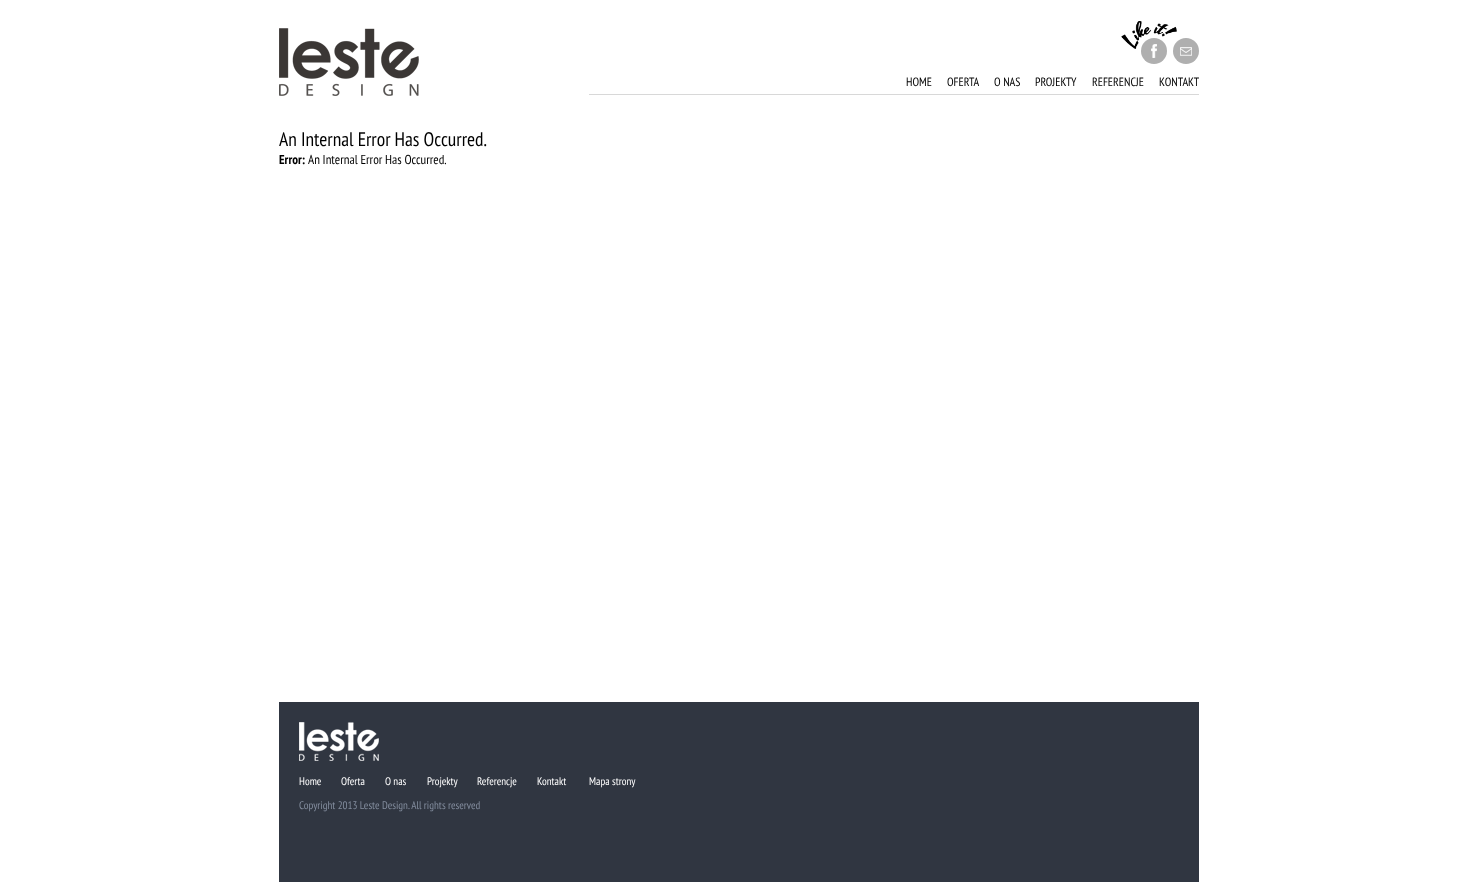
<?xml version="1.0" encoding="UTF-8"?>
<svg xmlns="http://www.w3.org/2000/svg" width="1478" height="882">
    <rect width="100%" height="100%" fill="#FFFFFF"/>
    <image x="279" y="28" width="140" height="68" href="img_01.png"/>
    <image x="1121" y="21" width="56" height="28" href="img_02.png"/>
    <circle cx="1154" cy="51" r="13" fill="#AFAFAF"/>
    <image x="1151" y="44" width="6" height="14" href="img_03.png"/>
    <circle cx="1186" cy="51" r="13" fill="#AFAFAF"/>
    <image x="1180" y="47" width="12" height="9" href="img_04.png"/>
    <rect x="589" y="94" width="610" height="1" fill="#D8D8D8"/>
    <text x="906" y="86" font-family="PT Sans Narrow" font-size="12" fill="#000000">HOME</text>
    <text x="947" y="86" font-family="PT Sans Narrow" font-size="12" fill="#000000">OFERTA</text>
    <text x="994" y="86" font-family="PT Sans Narrow" font-size="12" fill="#000000">O NAS</text>
    <text x="1035" y="86" font-family="PT Sans Narrow" font-size="12" fill="#000000">PROJEKTY</text>
    <text x="1092" y="86" font-family="PT Sans Narrow" font-size="12" fill="#000000">REFERENCJE</text>
    <text x="1159" y="86" font-family="PT Sans Narrow" font-size="12" fill="#000000">KONTAKT</text>
    <text x="279" y="146" font-family="PT Sans Narrow" font-size="19.5" fill="#000000">An Internal Error Has Occurred.</text>
    <text x="279" y="164" font-family="PT Sans Narrow" font-size="13" font-weight="700" fill="#000000">Error:</text>
    <text x="308" y="164" font-family="PT Sans Narrow" font-size="13" fill="#000000">An Internal Error Has Occurred.</text>
    <rect x="279" y="702" width="920" height="180" fill="#303641"/>
    <image x="299" y="722" width="80" height="39" href="img_05.png"/>
    <text x="299" y="785" font-family="PT Sans Narrow" font-size="11" fill="#FFFFFF">Home</text>
    <text x="341" y="785" font-family="PT Sans Narrow" font-size="11" fill="#FFFFFF">Oferta</text>
    <text x="385" y="785" font-family="PT Sans Narrow" font-size="11" fill="#FFFFFF">O nas</text>
    <text x="427" y="785" font-family="PT Sans Narrow" font-size="11" fill="#FFFFFF">Projekty</text>
    <text x="477" y="785" font-family="PT Sans Narrow" font-size="11" fill="#FFFFFF">Referencje</text>
    <text x="537" y="785" font-family="PT Sans Narrow" font-size="11" fill="#FFFFFF">Kontakt</text>
    <text x="589" y="785" font-family="PT Sans Narrow" font-size="11" fill="#FFFFFF">Mapa strony</text>
    <text x="299" y="809" font-family="PT Sans Narrow" font-size="11" fill="#838D9E">Copyright 2013 Leste Design. All rights reserved</text>
</svg>
